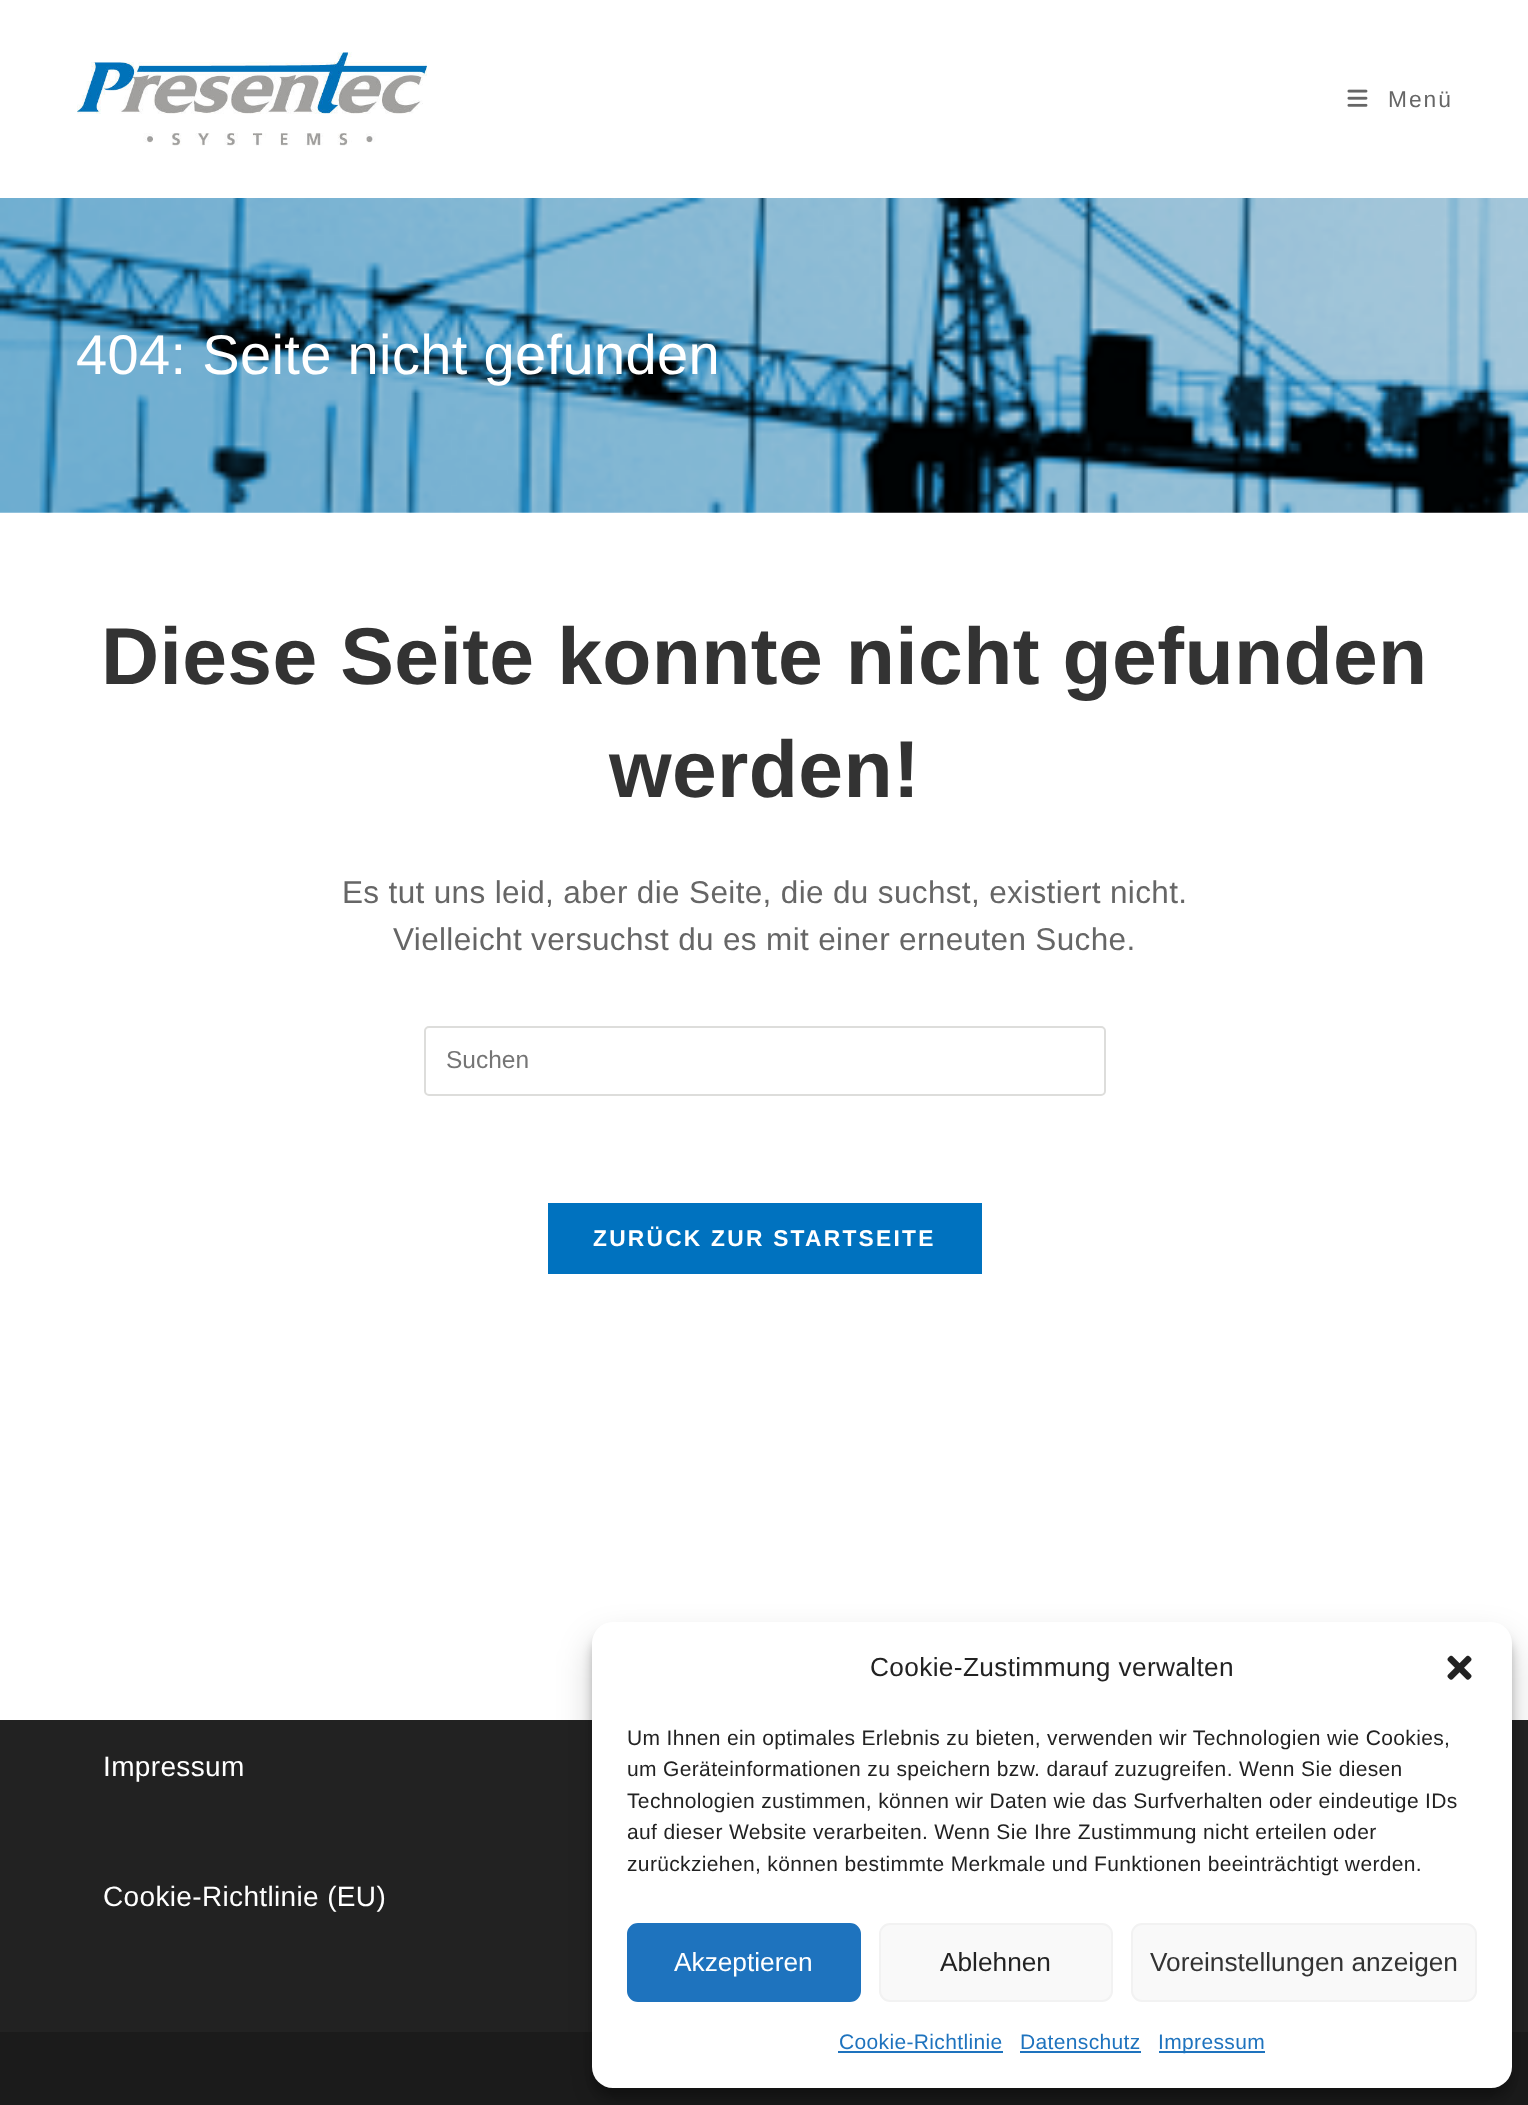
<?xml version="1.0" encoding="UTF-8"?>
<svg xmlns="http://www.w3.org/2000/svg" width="1528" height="2105">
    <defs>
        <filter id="blur1" x="-50%" y="-200%" width="200%" height="500%"><feGaussianBlur stdDeviation="5"/></filter>
        <filter id="blur2" x="-50%" y="-200%" width="200%" height="500%"><feGaussianBlur stdDeviation="17.5"/></filter>
    </defs>
    <rect width="100%" height="100%" fill="#FFFFFF"/>
    <image x="77" y="52" width="350" height="94" href="img_01.png"/>
    <image x="1347" y="89" width="21" height="18" href="img_02.png"/>
    <text x="1388" y="107" font-family="Liberation Sans" font-size="22.75" letter-spacing="2" fill="#666666">Menü</text>
    <image x="0" y="198" width="1528" height="315" href="img_03.png"/>
    <text x="76" y="374" font-family="Liberation Sans" font-size="56" letter-spacing="0.35" fill="#FFFFFF">404: Seite nicht gefunden</text>
    <text x="101" y="684" font-family="Liberation Sans" font-size="80.5" font-weight="700" letter-spacing="0.35" fill="#333333">Diese Seite konnte nicht gefunden</text>
    <text x="609" y="797" font-family="Liberation Sans" font-size="80.5" font-weight="700" letter-spacing="0.35" fill="#333333">werden!</text>
    <text x="342" y="903" font-family="Liberation Sans" font-size="31.5" letter-spacing="0.35" fill="#666666">Es tut uns leid, aber die Seite, die du suchst, existiert nicht.</text>
    <text x="393" y="950" font-family="Liberation Sans" font-size="31.5" letter-spacing="0.35" fill="#666666">Vielleicht versuchst du es mit einer erneuten Suche.</text>
    <rect x="425" y="1027" width="680" height="68" rx="4" fill="none" stroke="#DDDDDB" stroke-width="2"/>
    <text x="446" y="1068" font-family="Liberation Sans" font-size="24.5" fill="#757575">Suchen</text>
    <rect x="548" y="1203" width="434" height="71" fill="#0072BF"/>
    <text x="593" y="1246" font-family="Liberation Sans" font-size="22.75" font-weight="700" letter-spacing="2.25" fill="#FFFFFF">ZURÜCK ZUR STARTSEITE</text>
    <rect x="0" y="1720" width="1528" height="312" fill="#222222"/>
    <text x="103" y="1776" font-family="Liberation Sans" font-size="28" letter-spacing="0.35" fill="#FFFFFF">Impressum</text>
    <text x="103" y="1906" font-family="Liberation Sans" font-size="28" letter-spacing="0.35" fill="#FFFFFF">Cookie-Richtlinie (EU)</text>
    <rect x="0" y="2032" width="1528" height="73" fill="#1B1B1B"/>
    <rect x="592" y="1633" width="920" height="465" rx="21" fill="#000000" fill-opacity="0.23" filter="url(#blur1)"/>
    <rect x="592" y="1640" width="920" height="465" rx="21" fill="#000000" fill-opacity="0.19" filter="url(#blur2)"/>
    <rect x="592" y="1622" width="920" height="466" rx="21" fill="#FFFFFF"/>
    <text x="870" y="1676" font-family="Liberation Sans" font-size="26.25" letter-spacing="0.35" fill="#222222">Cookie-Zustimmung verwalten</text>
    <image x="1447" y="1655" width="25" height="25" href="img_04.png"/>
    <text font-family="Liberation Sans" font-size="21" letter-spacing="0.35" fill="#222222">
        <tspan x="627" y="1745">Um Ihnen ein optimales Erlebnis zu bieten, verwenden wir Technologien wie Cookies,</tspan>
        <tspan x="627" y="1776">um Geräteinformationen zu speichern bzw. darauf zuzugreifen. Wenn Sie diesen</tspan>
        <tspan x="627" y="1808">Technologien zustimmen, können wir Daten wie das Surfverhalten oder eindeutige IDs</tspan>
        <tspan x="627" y="1839">auf dieser Website verarbeiten. Wenn Sie Ihre Zustimmung nicht erteilen oder</tspan>
        <tspan x="627" y="1871">zurückziehen, können bestimmte Merkmale und Funktionen beeinträchtigt werden.</tspan>
    </text>
    <rect x="628" y="1924" width="232" height="77" rx="10" fill="#1E73BE" stroke="#1E73BE" stroke-width="2"/>
    <text x="674" y="1971" font-family="Liberation Sans" font-size="26.25" fill="#FFFFFF">Akzeptieren</text>
    <rect x="880" y="1924" width="232" height="77" rx="10" fill="#F9F9F9" stroke="#F2F2F2" stroke-width="2"/>
    <text x="940" y="1971" font-family="Liberation Sans" font-size="26.25" fill="#222222">Ablehnen</text>
    <rect x="1132" y="1924" width="344" height="77" rx="10" fill="#F9F9F9" stroke="#F2F2F2" stroke-width="2"/>
    <text x="1150" y="1971" font-family="Liberation Sans" font-size="26.25" fill="#333333">Voreinstellungen anzeigen</text>
    <text x="839" y="2049" font-family="Liberation Sans" font-size="21" letter-spacing="0.35" fill="#1E73BE">Cookie-Richtlinie</text>
    <rect x="838" y="2051" width="165" height="2" fill="#1E73BE"/>
    <text x="1020" y="2049" font-family="Liberation Sans" font-size="21" letter-spacing="0.35" fill="#1E73BE">Datenschutz</text>
    <rect x="1020" y="2051" width="121" height="2" fill="#1E73BE"/>
    <rect x="1159" y="2051" width="106" height="2" fill="#1E73BE"/>
    <text x="1158" y="2049" font-family="Liberation Sans" font-size="21" letter-spacing="0.35" fill="#1E73BE">Impressum</text>
</svg>
